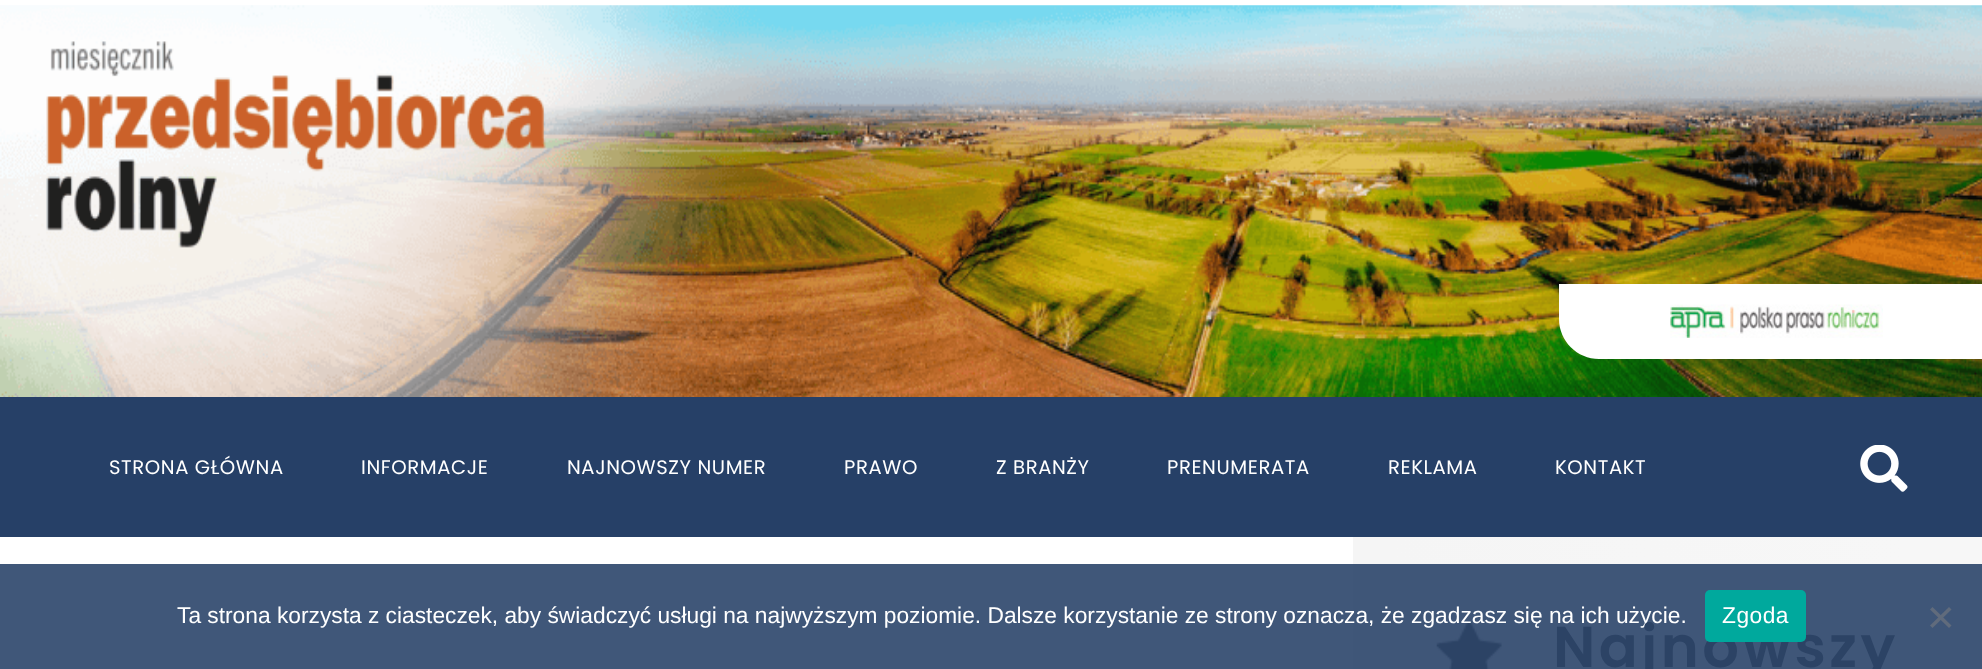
<?xml version="1.0" encoding="UTF-8"?>
<svg xmlns="http://www.w3.org/2000/svg" width="1982" height="669">
    <defs>
        <linearGradient id="g1" gradientUnits="userSpaceOnUse" x1="1348" y1="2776" x2="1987" y2="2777"><stop offset="0.06" stop-color="#3F5678"/><stop offset="0.87" stop-color="#3F5678"/></linearGradient>
        <linearGradient id="g2" gradientUnits="userSpaceOnUse" x1="1348" y1="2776" x2="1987" y2="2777"><stop offset="0.06" stop-color="#F5F5F5"/><stop offset="0.87" stop-color="#F7F7F7"/></linearGradient>
    </defs>
    <rect width="100%" height="100%" fill="#FFFFFF"/>
    <rect x="0" y="564" width="1353" height="105" fill="#405779"/>
    <image x="0" y="5" width="1982" height="392" href="img_01.png"/>
    <path d="M 1559 284 H 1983 V 359 H 1599 C 1577 359 1559 341 1559 319 Z" fill="#FFFFFF"/>
    <image x="1670" y="304" width="213" height="34" href="img_02.png"/>
    <rect x="0" y="397" width="1982" height="140" fill="#264067"/>
    <text x="109" y="474" font-family="Poppins" font-size="19.6" letter-spacing="0.6" fill="#FFFFFF">STRONA GŁÓWNA</text>
    <text x="361" y="474" font-family="Poppins" font-size="19.6" letter-spacing="0.6" fill="#FFFFFF">INFORMACJE</text>
    <text x="567" y="474" font-family="Poppins" font-size="19.6" letter-spacing="0.6" fill="#FFFFFF">NAJNOWSZY NUMER</text>
    <text x="844" y="474" font-family="Poppins" font-size="19.6" letter-spacing="0.6" fill="#FFFFFF">PRAWO</text>
    <text x="996" y="474" font-family="Poppins" font-size="19.6" letter-spacing="0.6" fill="#FFFFFF">Z BRANŻY</text>
    <text x="1167" y="474" font-family="Poppins" font-size="19.6" letter-spacing="0.6" fill="#FFFFFF">PRENUMERATA</text>
    <text x="1388" y="474" font-family="Poppins" font-size="19.6" letter-spacing="0.6" fill="#FFFFFF">REKLAMA</text>
    <text x="1555" y="474" font-family="Poppins" font-size="19.6" letter-spacing="0.6" fill="#FFFFFF">KONTAKT</text>
    <image x="1860" y="445" width="48" height="47" href="img_03.png"/>
    <rect x="1353" y="564" width="629" height="105" fill="url(#g1)"/>
    <image x="1436" y="621" width="66" height="48" href="img_04.png"/>
    <text x="177" y="623" font-family="Liberation Sans" font-size="22.75" fill="#FFFFFF">Ta strona korzysta z ciasteczek, aby świadczyć usługi na najwyższym poziomie. Dalsze korzystanie ze strony oznacza, że zgadzasz się na ich użycie.</text>
    <text x="1553" y="667" font-family="Poppins" font-size="57.5" font-weight="600" letter-spacing="3.5" fill="#2C4365">Najnowszy</text>
    <rect x="1705" y="590" width="101" height="52" rx="5" fill="#00A99D"/>
    <text x="1722" y="623" font-family="Liberation Sans" font-size="22.75" letter-spacing="0.5" fill="#FFFFFF">Zgoda</text>
    <path d="M 1949 607 L 1951.5 609.5 L 1932.5 628 L 1930 625.5 Z" fill="#606B7C"/>
    <path d="M 1930 609.5 L 1932.5 607 L 1951.5 625.5 L 1949 628 Z" fill="#606B7C"/>
    <rect x="1353" y="537" width="629" height="27" fill="url(#g2)"/>
</svg>
